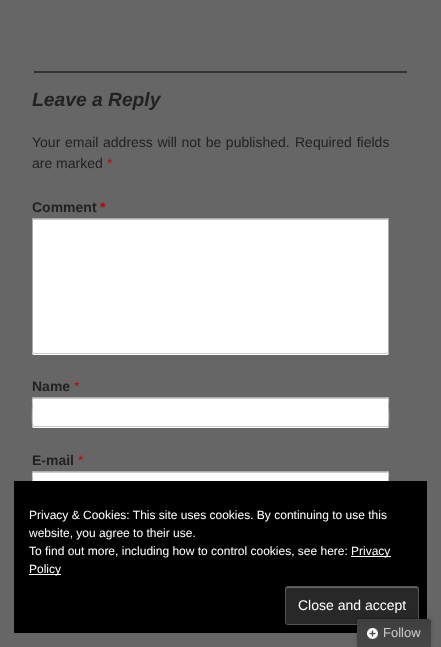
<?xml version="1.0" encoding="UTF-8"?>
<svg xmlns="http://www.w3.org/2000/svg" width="441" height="647">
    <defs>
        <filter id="blur1" x="-50%" y="-200%" width="200%" height="500%"><feGaussianBlur stdDeviation="2.5"/></filter>
        <linearGradient id="g1" gradientUnits="userSpaceOnUse" x1="357" y1="619" x2="357" y2="647"><stop offset="0" stop-color="#3F3F3F"/><stop offset="1" stop-color="#464646"/></linearGradient>
    </defs>
    <rect width="100%" height="100%" fill="#666666"/>
    <rect x="34" y="71" width="373" height="2" fill="#333333"/>
    <text x="32" y="106" font-family="Liberation Sans" font-size="19.25" font-weight="700" font-style="italic" fill="#222222">Leave a Reply</text>
    <text x="32" y="147" word-spacing="0.75" font-family="Liberation Sans" font-size="14" fill="#222222">Your email address will not be published.</text>
    <text x="295" y="147" word-spacing="1" font-family="Liberation Sans" font-size="14" fill="#222222">Required fields</text>
    <text x="32" y="168" font-family="Liberation Sans" font-size="14" fill="#222222">are marked</text>
    <text x="107" y="168" font-family="Liberation Sans" font-size="14" fill="#C50000">*</text>
    <text x="32" y="212" font-family="Liberation Sans" font-size="14" font-weight="700" fill="#222222">Comment</text>
    <text x="100" y="212" font-family="Liberation Sans" font-size="14" font-weight="700" fill="#C50000">*</text>
    <path d="M 32 352 C 32 353 32 355 34 355 H 387 C 389 355 389 353 389 352 C 389 353 388 354 387 354 H 34 C 33 354 32 353 32 352 Z" fill="#FFFFFF"/>
    <rect x="32" y="218" width="357" height="136" rx="2" fill="#FFFFFF"/>
    <path d="M 34 220 H 387 C 388 220 388 220 388 221 V 220 L 387 219 H 33 V 221 C 33 220 33 220 34 220 Z" fill="#CCCCCC"/>
    <path d="M 388 353 L 387 353.5 H 34 L 33 353" fill="none" stroke="#CCCCCC"/>
    <path d="M 33 353 L 32.5 352 V 220 L 33 219 L 34 218.5 H 387 L 388 219 L 388.5 220 V 352 L 388 353" fill="none" stroke="#AAAAAA"/>
    <text x="32" y="391" font-family="Liberation Sans" font-size="14" font-weight="700" fill="#222222">Name</text>
    <text x="74" y="391" font-family="Liberation Sans" font-size="14" fill="#C50000">*</text>
    <path d="M 32 425 C 32 426 32 428 34 428 H 387 C 389 428 389 426 389 425 C 389 426 388 427 387 427 H 34 C 33 427 32 426 32 425 Z" fill="#FFFFFF"/>
    <rect x="32" y="397" width="357" height="30" rx="2" fill="#FFFFFF"/>
    <path d="M 34 399 H 387 C 388 399 388 399 388 400 V 399 L 387 398 H 33 V 400 C 33 399 33 399 34 399 Z" fill="#CCCCCC"/>
    <path d="M 388 426 L 387 426.5 H 34 L 33 426" fill="none" stroke="#CCCCCC"/>
    <path d="M 33 426 C 31.5 425 32.5 406.5 32.5 403.5 C 32.5 403 31.5 397.5 34 397.5 H 387 C 389.5 397.5 388.5 403 388.5 403.5 C 388.5 406.5 389.5 425 388 426" fill="none" stroke="#AAAAAA"/>
    <text x="32" y="465" font-family="Liberation Sans" font-size="14" font-weight="700" fill="#222222">E-mail</text>
    <text x="78" y="465" font-family="Liberation Sans" font-size="14" fill="#C50000">*</text>
    <rect x="32" y="471" width="357" height="30" rx="2" fill="#FFFFFF"/>
    <path d="M 34 473 H 387 C 388 473 388 473 388 474 V 473 L 387 472 H 33 V 474 C 33 473 33 473 34 473 Z" fill="#CCCCCC"/>
    <path d="M 33 500 C 31.5 499 32.5 480.5 32.5 477.5 C 32.5 477 31.5 471.5 34 471.5 H 387 C 389.5 471.5 388.5 477 388.5 477.5 C 388.5 480.5 389.5 499 388 500" fill="none" stroke="#AAAAAA"/>
    <rect x="14" y="481" width="413" height="152" fill="#000000"/>
    <text font-family="Liberation Sans" font-size="12" fill="#FFFFFF">
        <tspan x="29" y="519">Privacy &amp; Cookies: This site uses cookies. By continuing to use this</tspan>
        <tspan x="29" y="537">website, you agree to their use.</tspan>
        <tspan x="29" y="555">To find out more, including how to control cookies, see here:</tspan>
    </text>
    <rect x="351" y="556" width="40" height="1" fill="#FFFFFF"/>
    <text x="351" y="555" font-family="Liberation Sans" font-size="12" fill="#FFFFFF">Privacy</text>
    <rect x="29" y="574" width="32" height="1" fill="#FFFFFF"/>
    <text x="29" y="573" font-family="Liberation Sans" font-size="12" fill="#FFFFFF">Policy</text>
    <rect x="285" y="586" width="134" height="39" rx="3" fill="#282828"/>
    <path d="M 288 588 H 416 C 417 588 418 589 418 590 C 418 589 418 587 416 587 H 288 C 286 587 286 589 286 590 C 286 589 287 588 288 588 Z" fill="#696969"/>
    <rect x="285.5" y="586.5" width="133" height="38" rx="2.5" fill="none" stroke="#535353"/>
    <text x="298" y="610" font-family="Liberation Sans" font-size="14" fill="#FFFFFF">Close and accept</text>
    <rect x="357" y="618" width="74" height="28" rx="2" fill="#000000" fill-opacity="0.2" filter="url(#blur1)"/>
    <path d="M 359 619 H 429 C 430 619 431 620 431 621 V 647 H 357 V 621 C 357 620 358 619 359 619 Z" fill="url(#g1)"/>
    <image x="367" y="628" width="11" height="11" href="img_01.png"/>
    <text x="383" y="637" font-family="Liberation Sans" font-size="13" fill="#CCCCCC">Follow</text>
</svg>
